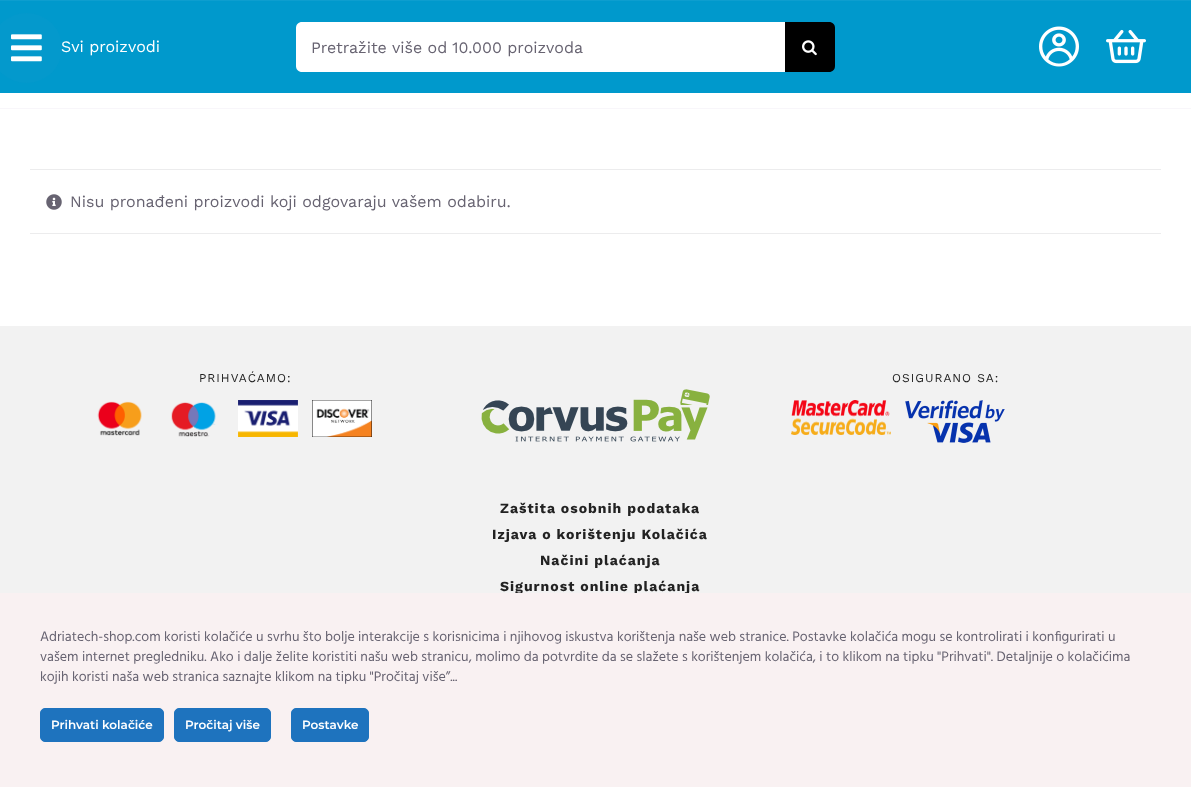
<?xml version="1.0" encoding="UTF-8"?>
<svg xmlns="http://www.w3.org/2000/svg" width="1191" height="787">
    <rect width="100%" height="100%" fill="#FFFFFF"/>
    <rect x="0" y="1" width="1191" height="92" fill="#0099CC"/>
    <rect x="0" y="0" width="1191" height="1" fill="#0D9ECF"/>
    <rect x="-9" y="13" width="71" height="70" rx="35" fill="#0499CC"/>
    <image x="11" y="34" width="31" height="28" href="img_01.png"/>
    <text x="61" y="52" font-family="Work Sans" font-size="16" fill="#FFFFFF">Svi proizvodi</text>
    <path d="M 302 22 H 785 V 72 H 302 C 298.5 72 296 69.5 296 66 V 28 C 296 24.5 298.5 22 302 22 Z" fill="#FFFFFF"/>
    <text x="311" y="53" font-family="Work Sans" font-size="16" fill="#676371">Pretražite više od 10.000 proizvoda</text>
    <path d="M 785 22 H 829 C 832.5 22 835 24.5 835 28 V 66 C 835 69.5 832.5 72 829 72 H 785 Z" fill="#000000"/>
    <image x="802" y="40" width="15" height="16" href="img_02.png"/>
    <image x="1039" y="26" width="40" height="41" href="img_03.png"/>
    <image x="1106" y="29" width="40" height="35" href="img_04.png"/>
    <rect x="0" y="108" width="1191" height="1" fill="#F8F6FA"/>
    <rect x="30" y="169" width="1131" height="1" fill="#ECECED"/>
    <rect x="30" y="233" width="1131" height="1" fill="#ECECED"/>
    <image x="46" y="194" width="16" height="16" href="img_05.png"/>
    <text x="70" y="207" font-family="Work Sans" font-size="16" fill="#676371">Nisu pronađeni proizvodi koji odgovaraju vašem odabiru.</text>
    <rect x="0" y="326" width="1191" height="267" fill="#F2F2F2"/>
    <text x="199" y="382" font-family="Work Sans" font-size="12" letter-spacing="1" fill="#222222">PRIHVAĆAMO:</text>
    <image x="97" y="401" width="45" height="35" href="img_06.png"/>
    <image x="171" y="402" width="45" height="35" href="img_07.png"/>
    <image x="238" y="400" width="60" height="37" href="img_08.png"/>
    <image x="312" y="400" width="60" height="37" href="img_09.png"/>
    <text x="892" y="382" font-family="Work Sans" font-size="12" letter-spacing="1" fill="#222222">OSIGURANO SA:</text>
    <image x="791" y="400" width="100" height="35" href="img_10.png"/>
    <image x="905" y="400" width="100" height="43" href="img_11.png"/>
    <image x="481" y="389" width="229" height="53" href="img_12.png"/>
    <text x="500" y="513" font-family="Work Sans" font-size="14" font-weight="700" letter-spacing="1" fill="#222222">Zaštita osobnih podataka</text>
    <text x="492" y="539" font-family="Work Sans" font-size="14" font-weight="700" letter-spacing="1" fill="#222222">Izjava o korištenju Kolačića</text>
    <text x="540" y="565" font-family="Work Sans" font-size="14" font-weight="700" letter-spacing="1" fill="#222222">Načini plaćanja</text>
    <text x="500" y="591" font-family="Work Sans" font-size="14" font-weight="700" letter-spacing="1" fill="#222222">Sigurnost online plaćanja</text>
    <rect x="0" y="593" width="1191" height="194" fill="#F9F1F2"/>
    <text font-family="Hind" font-size="14" fill="#676371">
        <tspan x="40" y="641">Adriatech-shop.com koristi kolačiće u svrhu što bolje interakcije s korisnicima i njihovog iskustva korištenja naše web stranice. Postavke kolačića mogu se kontrolirati i konfigurirati u</tspan>
        <tspan x="40" y="661">vašem internet pregledniku. Ako i dalje želite koristiti našu web stranicu, molimo da potvrdite da se slažete s korištenjem kolačića, i to klikom na tipku "Prihvati". Detaljnije o kolačićima</tspan>
        <tspan x="40" y="681">kojih koristi naša web stranica saznajte klikom na tipku "Pročitaj više”...</tspan>
    </text>
    <rect x="40.5" y="708.5" width="123" height="33" rx="4.5" fill="#1E73BE" stroke="#1E73BE"/>
    <text x="51" y="729" font-family="Montserrat" font-size="12" font-weight="600" fill="#FFFFFF">Prihvati kolačiće</text>
    <rect x="174.5" y="708.5" width="96" height="33" rx="4.5" fill="#1E73BE" stroke="#1E73BE"/>
    <text x="185" y="729" font-family="Montserrat" font-size="12" font-weight="600" fill="#FFFFFF">Pročitaj više</text>
    <rect x="291.5" y="708.5" width="77" height="33" rx="4.5" fill="#1E73BE" stroke="#1E73BE"/>
    <text x="302" y="729" font-family="Montserrat" font-size="12" font-weight="600" fill="#FFFFFF">Postavke</text>
</svg>
